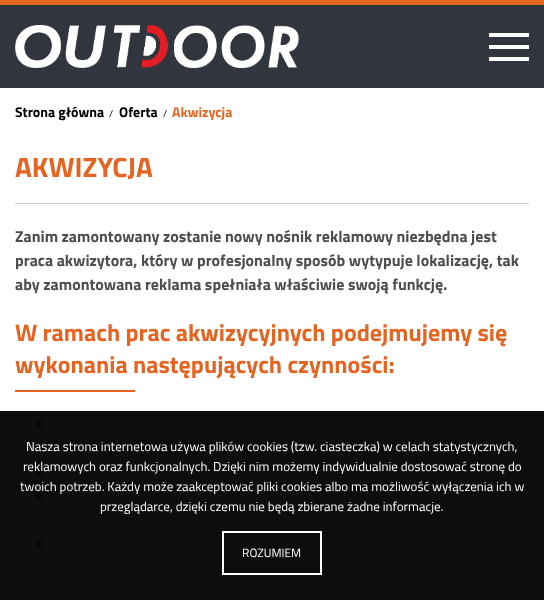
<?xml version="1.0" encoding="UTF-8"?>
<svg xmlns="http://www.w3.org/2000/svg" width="544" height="600">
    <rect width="100%" height="100%" fill="#FFFFFF"/>
    <rect x="0" y="411" width="544" height="189" fill="#0D0D0D"/>
    <rect x="0" y="5" width="544" height="83" fill="#31353D"/>
    <rect x="0" y="0" width="544" height="5" fill="#E66422"/>
    <image x="15" y="25" width="284" height="43" href="img_01.png"/>
    <rect x="489" y="33" width="40" height="4" fill="#FFFFFF"/>
    <rect x="489" y="45" width="40" height="4" fill="#FFFFFF"/>
    <rect x="489" y="57" width="40" height="4" fill="#FFFFFF"/>
    <text x="15" y="117" font-family="Titillium Web" font-size="14" font-weight="700" fill="#000000">Strona główna</text>
    <text x="109" y="117" font-family="Titillium Web" font-size="10" fill="#000000">/</text>
    <text x="119" y="117" font-family="Titillium Web" font-size="14" font-weight="700" fill="#000000">Oferta</text>
    <text x="163" y="117" font-family="Titillium Web" font-size="10" fill="#000000">/</text>
    <text x="172" y="117" font-family="Titillium Web" font-size="14" font-weight="700" fill="#E66422">Akwizycja</text>
    <rect x="15" y="203" width="514" height="1" fill="#CCCCCC"/>
    <text x="15" y="177" font-family="Titillium Web" font-size="28" font-weight="700" fill="#E66422">AKWIZYCJA</text>
    <text font-family="Titillium Web" font-size="16" font-weight="700" fill="#4E4E4E">
        <tspan x="15" y="242">Zanim zamontowany zostanie nowy nośnik reklamowy niezbędna jest</tspan>
        <tspan x="15" y="266">praca akwizytora, który w profesjonalny sposób wytypuje lokalizację, tak</tspan>
        <tspan x="15" y="290">aby zamontowana reklama spełniała właściwie swoją funkcję.</tspan>
    </text>
    <text font-family="Titillium Web" font-size="24" font-weight="700" fill="#E66422">
        <tspan x="15" y="341">W ramach prac akwizycyjnych podejmujemy się</tspan>
        <tspan x="15" y="373">wykonania następujących czynności:</tspan>
    </text>
    <rect x="15" y="390" width="120" height="2" fill="#E66422"/>
    <circle cx="39" cy="424" r="3" fill="#040404"/>
    <circle cx="39" cy="472" r="3" fill="#040404"/>
    <circle cx="39" cy="496" r="3" fill="#040404"/>
    <circle cx="39" cy="544" r="3" fill="#040404"/>
    <text x="26" y="451" font-family="Titillium Web" font-size="13" fill="#FFFFFF">Nasza strona internetowa używa plików cookies (tzw. ciasteczka) w celach statystycznych,</text>
    <text x="23" y="471" font-family="Titillium Web" font-size="13" fill="#FFFFFF">reklamowych oraz funkcjonalnych. Dzięki nim możemy indywidualnie dostosować stronę do</text>
    <text x="20" y="491" font-family="Titillium Web" font-size="13" fill="#FFFFFF">twoich potrzeb. Każdy może zaakceptować pliki cookies albo ma możliwość wyłączenia ich w</text>
    <text x="100" y="511" font-family="Titillium Web" font-size="13" fill="#FFFFFF">przeglądarce, dzięki czemu nie będą zbierane żadne informacje.</text>
    <rect x="223" y="532" width="98" height="42" fill="none" stroke="#FFFFFF" stroke-width="2"/>
    <text x="242" y="557" font-family="Titillium Web" font-size="12" fill="#FFFFFF">ROZUMIEM</text>
</svg>
